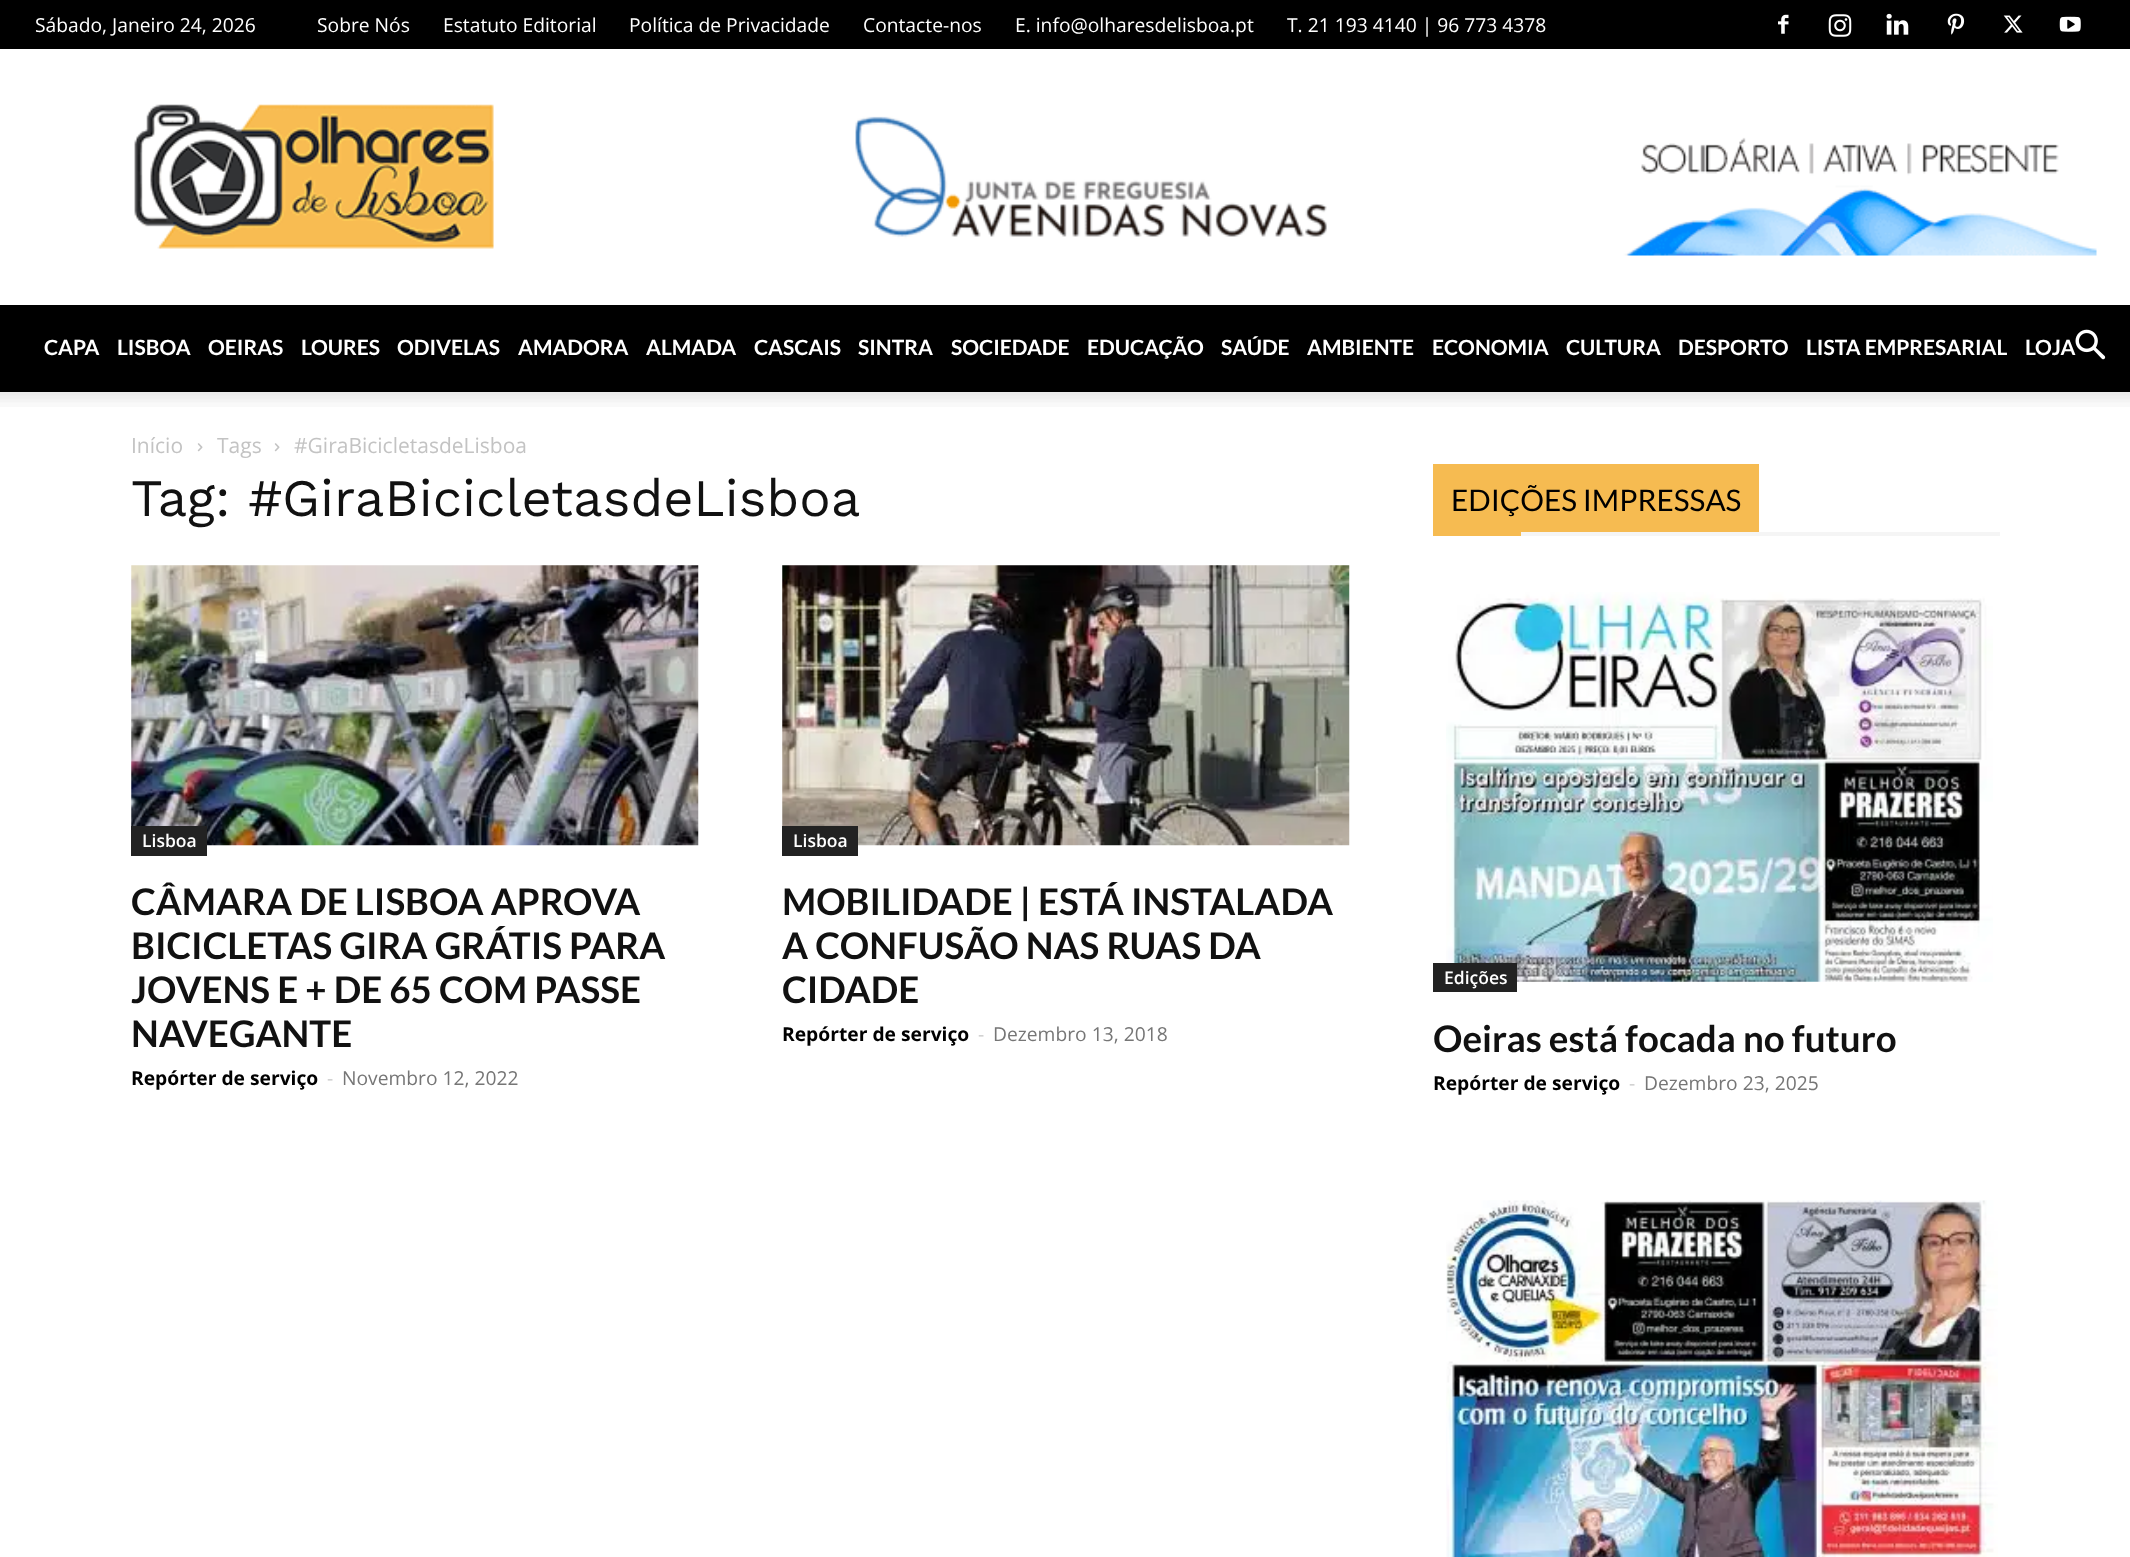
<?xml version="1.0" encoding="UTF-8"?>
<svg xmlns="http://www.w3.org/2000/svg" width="2130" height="1557">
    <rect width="100%" height="100%" fill="#FFFFFF"/>
    <rect x="0" y="0" width="2130" height="49" fill="#000000"/>
    <text x="35" y="32" font-family="Open Sans" font-size="19.25" fill="#FFFFFF">Sábado, Janeiro 24, 2026</text>
    <text x="317" y="32" font-family="Open Sans" font-size="19.25" fill="#FFFFFF">Sobre Nós</text>
    <text x="443" y="32" font-family="Open Sans" font-size="19.25" fill="#FFFFFF">Estatuto Editorial</text>
    <text x="629" y="32" font-family="Open Sans" font-size="19.25" fill="#FFFFFF">Política de Privacidade</text>
    <text x="863" y="32" font-family="Open Sans" font-size="19.25" fill="#FFFFFF">Contacte-nos</text>
    <text x="1015" y="32" font-family="Open Sans" font-size="19.25" fill="#FFFFFF">E. info@olharesdelisboa.pt</text>
    <text x="1287" y="32" font-family="Open Sans" font-size="19.25" fill="#FFFFFF">T. 21 193 4140 | 96 773 4378</text>
    <image x="1778" y="14" width="11" height="20" href="img_01.png"/>
    <image x="1828" y="14" width="24" height="23" href="img_02.png"/>
    <image x="1886" y="13" width="23" height="22" href="img_03.png"/>
    <image x="1947" y="13" width="18" height="22" href="img_04.png"/>
    <image x="2003" y="15" width="20" height="18" href="img_05.png"/>
    <image x="2059" y="16" width="22" height="16" href="img_06.png"/>
    <image x="134" y="104" width="360" height="145" href="img_07.png"/>
    <image x="855" y="116" width="1242" height="140" href="img_08.png"/>
    <rect x="0" y="305" width="2130" height="87" fill="#000000"/>
    <text x="44" y="355" font-family="Lato" font-size="21" font-weight="700" fill="#FFFFFF">CAPA</text>
    <text x="117" y="355" font-family="Lato" font-size="21" font-weight="700" fill="#FFFFFF">LISBOA</text>
    <text x="208" y="355" font-family="Lato" font-size="21" font-weight="700" fill="#FFFFFF">OEIRAS</text>
    <text x="301" y="355" font-family="Lato" font-size="21" font-weight="700" fill="#FFFFFF">LOURES</text>
    <text x="397" y="355" font-family="Lato" font-size="21" font-weight="700" fill="#FFFFFF">ODIVELAS</text>
    <text x="518" y="355" font-family="Lato" font-size="21" font-weight="700" fill="#FFFFFF">AMADORA</text>
    <text x="646" y="355" font-family="Lato" font-size="21" font-weight="700" fill="#FFFFFF">ALMADA</text>
    <text x="754" y="355" font-family="Lato" font-size="21" font-weight="700" fill="#FFFFFF">CASCAIS</text>
    <text x="858" y="355" font-family="Lato" font-size="21" font-weight="700" fill="#FFFFFF">SINTRA</text>
    <text x="951" y="355" font-family="Lato" font-size="21" font-weight="700" fill="#FFFFFF">SOCIEDADE</text>
    <text x="1087" y="355" font-family="Lato" font-size="21" font-weight="700" fill="#FFFFFF">EDUCAÇÃO</text>
    <text x="1221" y="355" font-family="Lato" font-size="21" font-weight="700" fill="#FFFFFF">SAÚDE</text>
    <text x="1307" y="355" font-family="Lato" font-size="21" font-weight="700" fill="#FFFFFF">AMBIENTE</text>
    <text x="1432" y="355" font-family="Lato" font-size="21" font-weight="700" fill="#FFFFFF">ECONOMIA</text>
    <text x="1566" y="355" font-family="Lato" font-size="21" font-weight="700" fill="#FFFFFF">CULTURA</text>
    <text x="1678" y="355" font-family="Lato" font-size="21" font-weight="700" fill="#FFFFFF">DESPORTO</text>
    <text x="1806" y="355" font-family="Lato" font-size="21" font-weight="700" fill="#FFFFFF">LISTA EMPRESARIAL</text>
    <text x="2025" y="355" font-family="Lato" font-size="21" font-weight="700" fill="#FFFFFF">LOJA</text>
    <image x="2075" y="329" width="31" height="31" href="img_09.png"/>
    <image x="0" y="392" width="2130" height="15" href="img_10.png"/>
    <text x="131" y="453" font-family="Open Sans" font-size="21" fill="#C3C3C3">Início</text>
    <image x="197" y="443" width="6" height="9" href="img_11.png"/>
    <text x="217" y="453" font-family="Open Sans" font-size="21" fill="#C3C3C3">Tags</text>
    <image x="274" y="443" width="6" height="9" href="img_11.png"/>
    <text x="294" y="453" font-family="Open Sans" font-size="21" fill="#C3C3C3">#GiraBicicletasdeLisboa</text>
    <text x="131" y="516" font-family="Work Sans" font-size="52.5" fill="#111111">Tag: #GiraBicicletasdeLisboa</text>
    <image x="131" y="565" width="568" height="281" href="img_12.png"/>
    <rect x="131" y="826" width="76" height="30" fill="#222222"/>
    <text x="142" y="847" font-family="Open Sans" font-size="17.5" font-weight="600" fill="#FFFFFF">Lisboa</text>
    <text font-family="Lato" font-size="36.75" font-weight="700" fill="#111111">
        <tspan x="131" y="915">CÂMARA DE LISBOA APROVA</tspan>
        <tspan x="131" y="959">BICICLETAS GIRA GRÁTIS PARA</tspan>
        <tspan x="131" y="1003">JOVENS E + DE 65 COM PASSE</tspan>
        <tspan x="131" y="1047">NAVEGANTE</tspan>
    </text>
    <text x="131" y="1085" font-family="Open Sans" font-size="19.25" font-weight="700" fill="#000000">Repórter de serviço</text>
    <text x="327" y="1085" font-family="Open Sans" font-size="19.25" fill="#CCCCCC">-</text>
    <text x="342" y="1085" font-family="Open Sans" font-size="19.25" fill="#767676">Novembro 12, 2022</text>
    <image x="782" y="565" width="568" height="281" href="img_13.png"/>
    <rect x="782" y="826" width="76" height="30" fill="#222222"/>
    <text x="793" y="847" font-family="Open Sans" font-size="17.5" font-weight="600" fill="#FFFFFF">Lisboa</text>
    <text font-family="Lato" font-size="36.75" font-weight="700" fill="#111111">
        <tspan x="782" y="915">MOBILIDADE | ESTÁ INSTALADA</tspan>
        <tspan x="782" y="959">A CONFUSÃO NAS RUAS DA</tspan>
        <tspan x="782" y="1003">CIDADE</tspan>
    </text>
    <text x="782" y="1041" font-family="Open Sans" font-size="19.25" font-weight="700" fill="#000000">Repórter de serviço</text>
    <text x="978" y="1041" font-family="Open Sans" font-size="19.25" fill="#CCCCCC">-</text>
    <text x="993" y="1041" font-family="Open Sans" font-size="19.25" fill="#767676">Dezembro 13, 2018</text>
    <rect x="1433" y="464" width="326" height="68" fill="#F6BB51"/>
    <text x="1451" y="511" font-family="Lato" font-size="29.75" fill="#000000">EDIÇÕES IMPRESSAS</text>
    <rect x="1433" y="532" width="88" height="4" fill="#F6BB51"/>
    <rect x="1521" y="532" width="479" height="4" fill="#F5F5F5"/>
    <image x="1446" y="592" width="547" height="390" href="img_14.png"/>
    <rect x="1433" y="963" width="84" height="29" fill="#222222"/>
    <text x="1444" y="984" font-family="Open Sans" font-size="17.5" font-weight="600" fill="#FFFFFF">Edições</text>
    <text x="1433" y="1052" font-family="Lato" font-size="36.75" font-weight="700" fill="#111111">Oeiras está focada no futuro</text>
    <text x="1433" y="1090" font-family="Open Sans" font-size="19.25" font-weight="700" fill="#000000">Repórter de serviço</text>
    <text x="1629" y="1090" font-family="Open Sans" font-size="19.25" fill="#CCCCCC">-</text>
    <text x="1644" y="1090" font-family="Open Sans" font-size="19.25" fill="#767676">Dezembro 23, 2025</text>
    <image x="1446" y="1200" width="552" height="357" href="img_15.png"/>
</svg>
